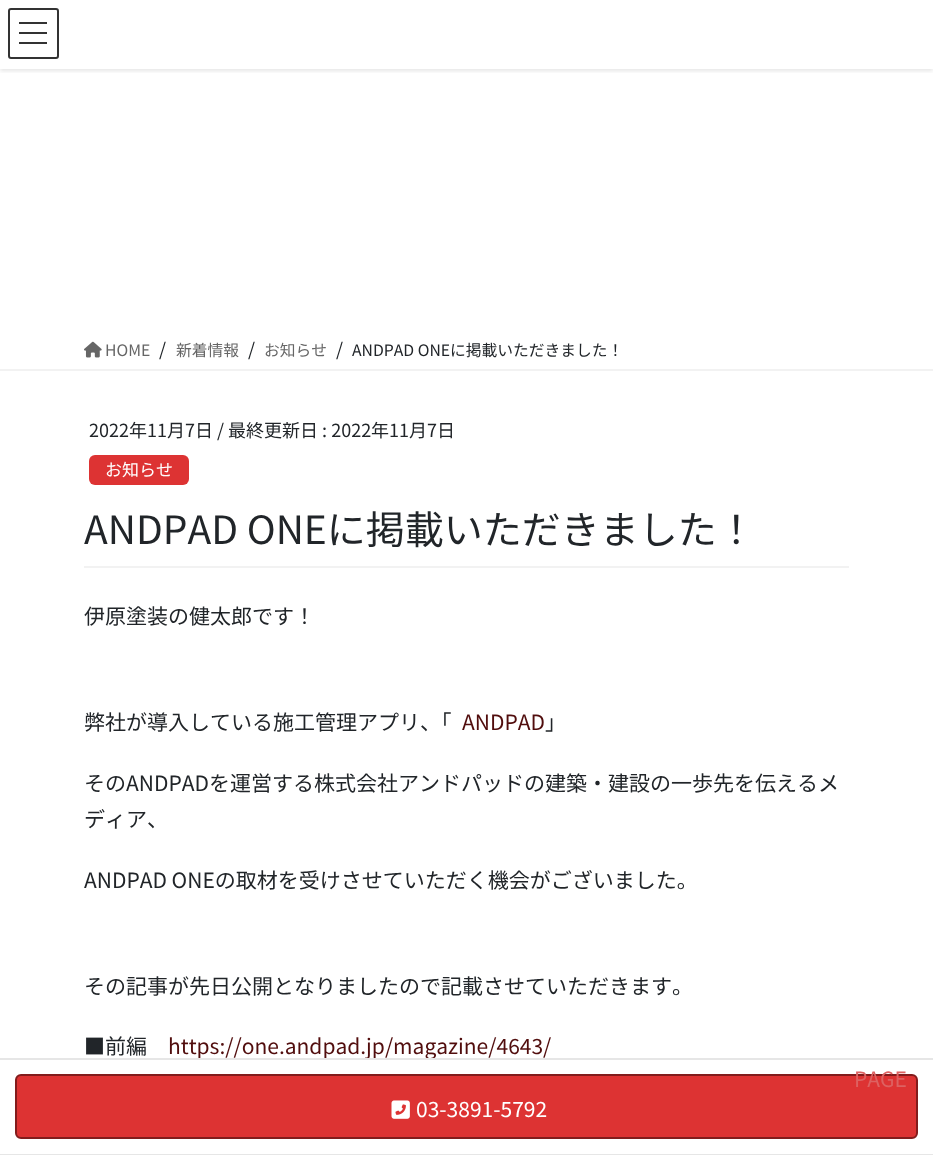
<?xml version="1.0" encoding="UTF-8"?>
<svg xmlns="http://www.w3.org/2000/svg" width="933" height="1155">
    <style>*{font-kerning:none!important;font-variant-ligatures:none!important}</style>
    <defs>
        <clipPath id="clip1"><rect x="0" y="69" width="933" height="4"/></clipPath>
        <filter id="blur1" x="-50%" y="-200%" width="200%" height="500%"><feGaussianBlur stdDeviation="2"/></filter>
    </defs>
    <rect width="100%" height="100%" fill="#FFFFFF"/>
    <g clip-path="url(#clip1)">
        <rect x="0" y="2" width="933" height="69" fill="#000000" fill-opacity="0.1" filter="url(#blur1)"/>
    </g>
    <rect x="19" y="22" width="28" height="2" fill="#333333"/>
    <rect x="19" y="32" width="28" height="2" fill="#333333"/>
    <rect x="19" y="42" width="28" height="2" fill="#333333"/>
    <rect x="9" y="9" width="49" height="49" rx="2" fill="none" stroke="#333333" stroke-width="2"/>
    <rect x="0" y="369" width="933" height="2" fill="#F2F2F2"/>
    <image x="84" y="341" width="18" height="17" href="img_01.png"/>
    <text x="105" y="356" font-family="Noto Sans JP" font-size="15.75" font-weight="100" fill="#666666">HOME</text>
    <text x="159" y="356" font-family="Noto Sans JP" font-size="18" font-weight="100" fill="#212529">/</text>
    <text x="176" y="356" font-family="Noto Sans JP" font-size="15.75" font-weight="100" fill="#666666">新着情報</text>
    <text x="248" y="356" font-family="Noto Sans JP" font-size="18" font-weight="100" fill="#212529">/</text>
    <text x="264" y="356" font-family="Noto Sans JP" font-size="15.75" font-weight="100" fill="#666666">お知らせ</text>
    <text x="336" y="356" font-family="Noto Sans JP" font-size="18" font-weight="100" fill="#212529">/</text>
    <text x="352" y="356" font-family="Noto Sans JP" font-size="15.75" font-weight="100" fill="#212529">ANDPAD ONEに掲載いただきました！</text>
    <rect x="84" y="566" width="765" height="2" fill="#F2F2F2"/>
    <text x="89" y="437" font-family="Noto Sans JP" font-size="18" font-weight="100" fill="#212529">2022年11月7日</text>
    <text x="217" y="437" font-family="Noto Sans JP" font-size="18" font-weight="100" fill="#212529">/ 最終更新日 : 2022年11月7日</text>
    <rect x="89" y="455" width="100" height="30" rx="6" fill="#DD3333"/>
    <text x="105" y="476" font-family="Noto Sans JP" font-size="17" font-weight="100" fill="#FFFFFF">お知らせ</text>
    <text x="84" y="544" font-family="Noto Sans JP" font-size="39" font-weight="100" fill="#212529">ANDPAD ONEに掲載いただきました！</text>
    <text x="84" y="624" font-family="Noto Sans JP" font-size="21" font-weight="100" fill="#212529">伊原塗装の健太郎です！</text>
    <text x="84" y="730" font-family="Noto Sans JP" font-size="21" font-weight="100" fill="#212529">弊社が導入している施工管理アプリ、「</text>
    <text x="462" y="730" font-family="Noto Sans JP" font-size="21" font-weight="100" fill="#510D0D">ANDPAD</text>
    <text x="545" y="730" font-family="Noto Sans JP" font-size="21" font-weight="100" fill="#212529">」</text>
    <text font-family="Noto Sans JP" font-size="21" font-weight="100" fill="#212529">
        <tspan x="84" y="791">そのANDPADを運営する株式会社アンドパッドの建築・建設の一歩先を伝えるメ</tspan>
        <tspan x="84" y="827">ディア、</tspan>
    </text>
    <text x="84" y="888" font-family="Noto Sans JP" font-size="21" font-weight="100" fill="#212529">ANDPAD ONEの取材を受けさせていただく機会がございました。</text>
    <text x="84" y="994" font-family="Noto Sans JP" font-size="21" font-weight="100" fill="#212529">その記事が先日公開となりましたので記載させていただきます。</text>
    <text x="84" y="1054" font-family="Noto Sans JP" font-size="21" font-weight="100" fill="#212529">■前編</text>
    <text x="168" y="1054" font-family="Noto Sans JP" font-size="21" font-weight="100" fill="#510D0D">https://one.andpad.jp/magazine/4643/</text>
    <rect x="16" y="1075" width="901" height="63" rx="5" fill="#DD3333" stroke="#821C1C" stroke-width="2"/>
    <text x="854" y="1087" font-family="Noto Sans JP" font-size="21" font-weight="100" fill="#DD6161">PAGE</text>
    <rect x="0" y="1058" width="933" height="2" fill="#E6E6E6"/>
    <rect x="0" y="1154" width="933" height="1" fill="#E6E6E6"/>
    <image x="391" y="1100" width="19" height="19" href="img_02.png"/>
    <text x="416" y="1117" font-family="Noto Sans JP" font-size="21" font-weight="100" fill="#FFFFFF">03-3891-5792</text>
</svg>
